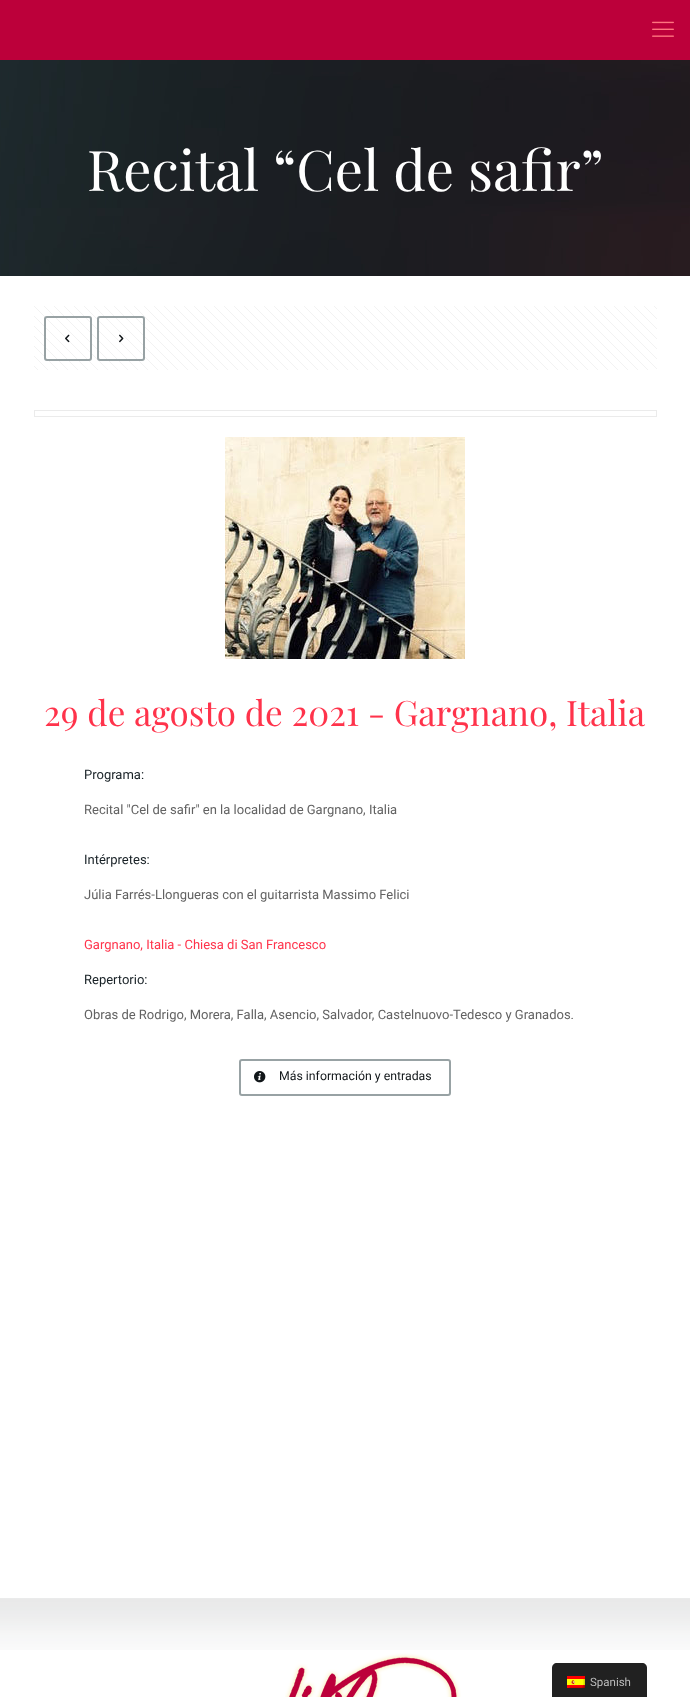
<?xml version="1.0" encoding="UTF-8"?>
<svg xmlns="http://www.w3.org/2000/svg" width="690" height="1697">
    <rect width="100%" height="100%" fill="#FFFFFF"/>
    <image x="0" y="60" width="690" height="216" href="img_01.png"/>
    <rect x="0" y="0" width="690" height="60" fill="#BC003A"/>
    <image x="652" y="21" width="22" height="16" href="img_02.png"/>
    <text x="87" y="191" font-family="Playfair Display" font-size="56" fill="#FFFFFF">Recital “Cel de safir”</text>
    <image x="34" y="306" width="623" height="64" href="img_03.png"/>
    <rect x="45" y="317" width="46" height="43" rx="2" fill="none" stroke="#98A2A4" stroke-width="2"/>
    <image x="65" y="334" width="5" height="9" href="img_04.png"/>
    <rect x="98" y="317" width="46" height="43" rx="2" fill="none" stroke="#98A2A4" stroke-width="2"/>
    <image x="119" y="334" width="5" height="9" href="img_05.png"/>
    <rect x="34.5" y="410.5" width="622" height="6" fill="none" stroke="#EBEBEB"/>
    <image x="225" y="437" width="240" height="222" href="img_06.png"/>
    <text x="44" y="726" font-family="Playfair Display" font-size="35" fill="#FF334B">29 de agosto de 2021 - Gargnano, Italia</text>
    <text x="84" y="779" font-family="Roboto" font-size="13" fill="#172025">Programa:</text>
    <text x="84" y="814" font-family="Roboto" font-size="13" fill="#626262">Recital "Cel de safir" en la localidad de Gargnano, Italia</text>
    <text x="84" y="864" font-family="Roboto" font-size="13" fill="#172025">Intérpretes:</text>
    <text x="84" y="899" font-family="Roboto" font-size="13" fill="#626262">Júlia Farrés-Llongueras con el guitarrista Massimo Felici</text>
    <text x="84" y="949" font-family="Roboto" font-size="13" fill="#FF334B">Gargnano, Italia - Chiesa di San Francesco</text>
    <text x="84" y="984" font-family="Roboto" font-size="13" fill="#172025">Repertorio:</text>
    <text x="84" y="1019" font-family="Roboto" font-size="13" fill="#626262">Obras de Rodrigo, Morera, Falla, Asencio, Salvador, Castelnuovo-Tedesco y Granados.</text>
    <rect x="240" y="1060" width="210" height="35" rx="2" fill="none" stroke="#98A2A4" stroke-width="2"/>
    <image x="254" y="1071" width="12" height="12" href="img_07.png"/>
    <text x="279" y="1080" font-family="Roboto" font-size="12.3" fill="#111619">Más información y entradas</text>
    <image x="0" y="1598" width="690" height="52" href="img_08.png"/>
    <image x="285" y="1653" width="176" height="44" href="img_09.png"/>
    <path d="M 557 1663 H 642 C 645 1663 647 1665 647 1668 V 1697 H 552 V 1668 C 552 1665 554 1663 557 1663 Z" fill="#212121"/>
    <image x="567" y="1676" width="18" height="12" href="img_10.png"/>
    <text x="590" y="1686" font-family="Roboto" font-size="11.5" fill="#BDBDBD">Spanish</text>
</svg>
